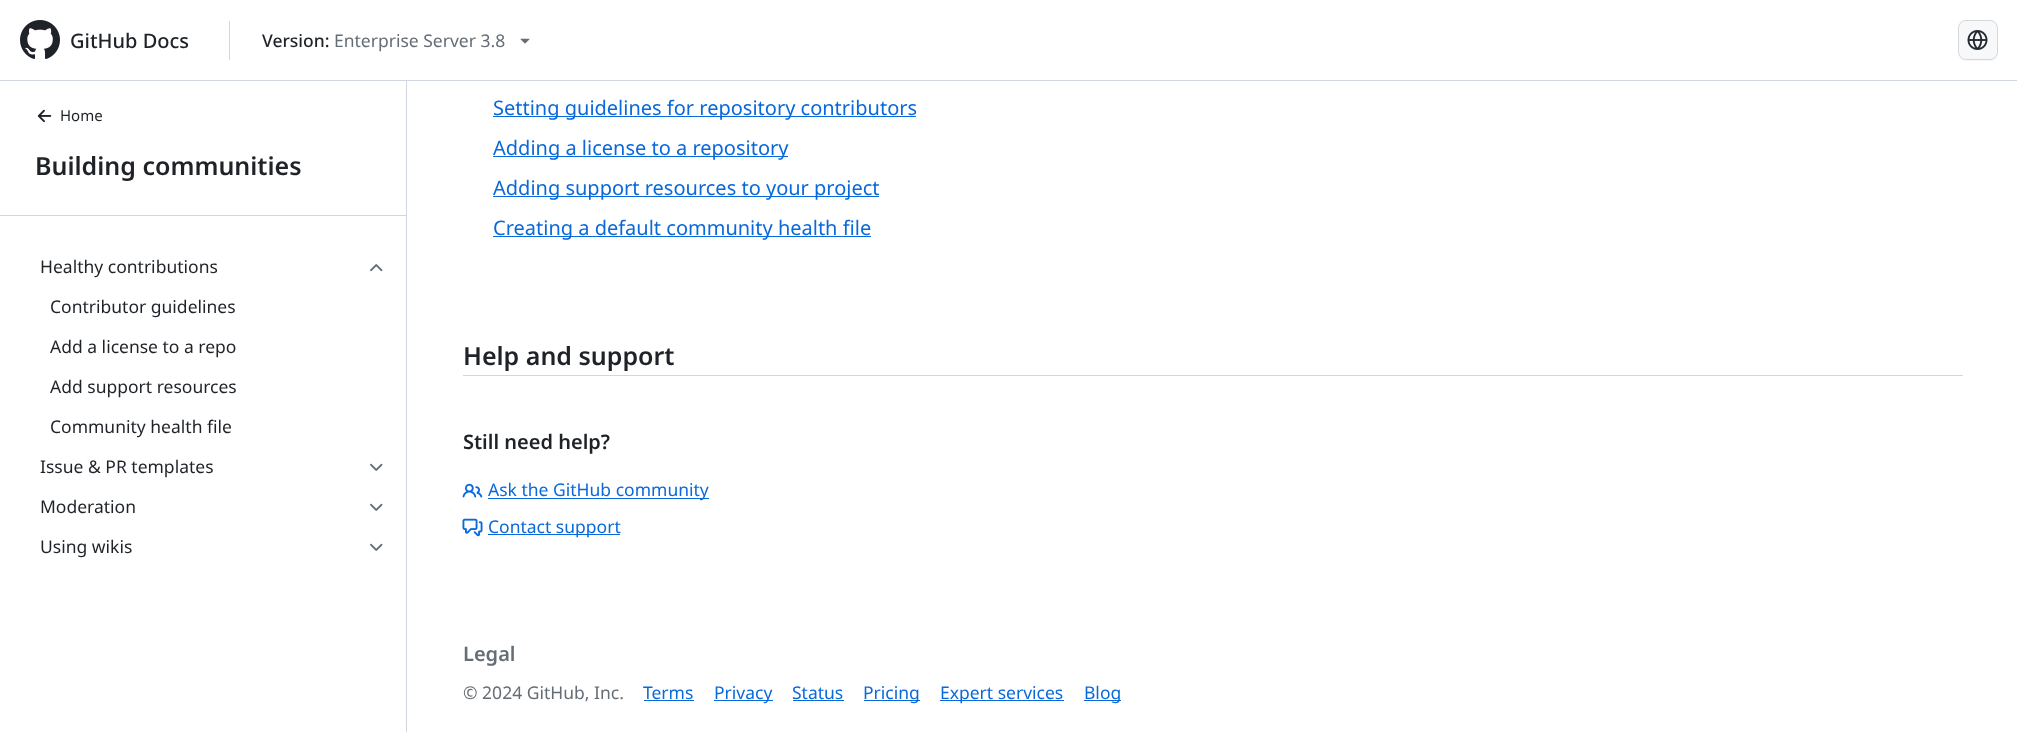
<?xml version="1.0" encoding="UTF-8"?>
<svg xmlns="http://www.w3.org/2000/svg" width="2017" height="732">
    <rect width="100%" height="100%" fill="#FFFFFF"/>
    <rect x="0" y="80" width="2017" height="1" fill="#D0D7DE"/>
    <image x="20" y="20" width="40" height="39" href="img_01.png"/>
    <text x="70" y="48" font-family="Noto Sans" font-size="20" font-weight="500" fill="#1F2328">GitHub Docs</text>
    <rect x="229" y="21" width="1" height="39" fill="#D0D7DE"/>
    <text x="262" y="47" font-family="Noto Sans" font-size="17.5" font-weight="500" fill="#1F2328">Version:</text>
    <text x="334" y="47" font-family="Noto Sans" font-size="17.5" fill="#656D76">Enterprise Server 3.8</text>
    <image x="520" y="38" width="10" height="6" href="img_02.png"/>
    <path d="M 1959.5 57.5 C 1960.5 59.5 1963 61 1966 61 H 1990 C 1994.5 61 1998 57.5 1998 53 V 29 C 1998 28 1997.5 26.5 1997.5 25.5 V 31.5 V 54 C 1996 60 1991 60 1986 60 H 1973.5 C 1969 60 1962.5 61.5 1959.5 57.5 Z" fill="#F6F6F6"/>
    <rect x="1958" y="20" width="40" height="40" rx="8" fill="#F6F8FA"/>
    <rect x="1958.5" y="20.5" width="39" height="39" rx="7.5" fill="none" stroke="#1F2328" stroke-opacity="0.15"/>
    <image x="1967" y="30" width="21" height="20" href="img_03.png"/>
    <rect x="406" y="81" width="1" height="651" fill="#D0D7DE"/>
    <rect x="0" y="215" width="406" height="1" fill="#D0D7DE"/>
    <image x="37" y="109" width="15" height="14" href="img_04.png"/>
    <text x="60" y="121" font-family="Noto Sans" font-size="15" fill="#1F2328">Home</text>
    <text x="35" y="175" font-family="Noto Sans" font-size="25" font-weight="600" fill="#1F2328">Building communities</text>
    <text x="40" y="273" font-family="Noto Sans" font-size="17.5" fill="#1F2328">Healthy contributions</text>
    <image x="370" y="264" width="13" height="8" href="img_05.png"/>
    <text x="50" y="313" font-family="Noto Sans" font-size="17.5" fill="#1F2328">Contributor guidelines</text>
    <text x="50" y="353" font-family="Noto Sans" font-size="17.5" fill="#1F2328">Add a license to a repo</text>
    <text x="50" y="393" font-family="Noto Sans" font-size="17.5" fill="#1F2328">Add support resources</text>
    <text x="50" y="433" font-family="Noto Sans" font-size="17.5" fill="#1F2328">Community health file</text>
    <text x="40" y="473" font-family="Noto Sans" font-size="17.5" fill="#1F2328">Issue &amp; PR templates</text>
    <image x="370" y="463" width="13" height="8" href="img_06.png"/>
    <text x="40" y="513" font-family="Noto Sans" font-size="17.5" fill="#1F2328">Moderation</text>
    <image x="370" y="503" width="13" height="8" href="img_06.png"/>
    <text x="40" y="553" font-family="Noto Sans" font-size="17.5" fill="#1F2328">Using wikis</text>
    <image x="370" y="543" width="13" height="8" href="img_06.png"/>
    <rect x="493" y="116" width="423" height="1" fill="#0969DA"/>
    <text x="493" y="115" font-family="Noto Sans" font-size="20" fill="#0969DA">Setting guidelines for repository contributors</text>
    <rect x="493" y="156" width="295" height="1" fill="#0969DA"/>
    <text x="493" y="155" font-family="Noto Sans" font-size="20" fill="#0969DA">Adding a license to a repository</text>
    <rect x="493" y="196" width="386" height="1" fill="#0969DA"/>
    <text x="493" y="195" font-family="Noto Sans" font-size="20" fill="#0969DA">Adding support resources to your project</text>
    <rect x="493" y="236" width="378" height="1" fill="#0969DA"/>
    <text x="493" y="235" font-family="Noto Sans" font-size="20" fill="#0969DA">Creating a default community health file</text>
    <text x="463" y="365" font-family="Noto Sans" font-size="25" font-weight="600" fill="#1F2328">Help and support</text>
    <rect x="463" y="375" width="1500" height="1" fill="#D0D7DE"/>
    <text x="463" y="449" font-family="Noto Sans" font-size="20" font-weight="600" fill="#1F2328">Still need help?</text>
    <image x="462" y="483" width="21" height="15" href="img_07.png"/>
    <rect x="488" y="498" width="221" height="1" fill="#0969DA"/>
    <text x="488" y="496" font-family="Noto Sans" font-size="17.5" fill="#0969DA">Ask the GitHub community</text>
    <image x="462" y="518" width="21" height="19" href="img_08.png"/>
    <rect x="488" y="534" width="132" height="1" fill="#0969DA"/>
    <text x="488" y="533" font-family="Noto Sans" font-size="17.5" fill="#0969DA">Contact support</text>
    <text x="463" y="661" font-family="Noto Sans" font-size="20" font-weight="600" fill="#656D76">Legal</text>
    <text x="463" y="699" font-family="Noto Sans" font-size="17.5" fill="#656D76">© 2024 GitHub, Inc.</text>
    <text x="643" y="699" font-family="Noto Sans" font-size="17.5" fill="#0969DA">Terms</text>
    <rect x="644" y="700" width="50" height="1" fill="#0969DA"/>
    <rect x="714" y="700" width="59" height="1" fill="#0969DA"/>
    <text x="714" y="699" font-family="Noto Sans" font-size="17.5" fill="#0969DA">Privacy</text>
    <text x="792" y="699" font-family="Noto Sans" font-size="17.5" fill="#0969DA">Status</text>
    <rect x="793" y="700" width="51" height="1" fill="#0969DA"/>
    <rect x="864" y="700" width="56" height="1" fill="#0969DA"/>
    <text x="863" y="699" font-family="Noto Sans" font-size="17.5" fill="#0969DA">Pricing</text>
    <rect x="940" y="700" width="124" height="1" fill="#0969DA"/>
    <text x="940" y="699" font-family="Noto Sans" font-size="17.5" fill="#0969DA">Expert services</text>
    <rect x="1084" y="700" width="37" height="1" fill="#0969DA"/>
    <text x="1084" y="699" font-family="Noto Sans" font-size="17.5" fill="#0969DA">Blog</text>
</svg>
